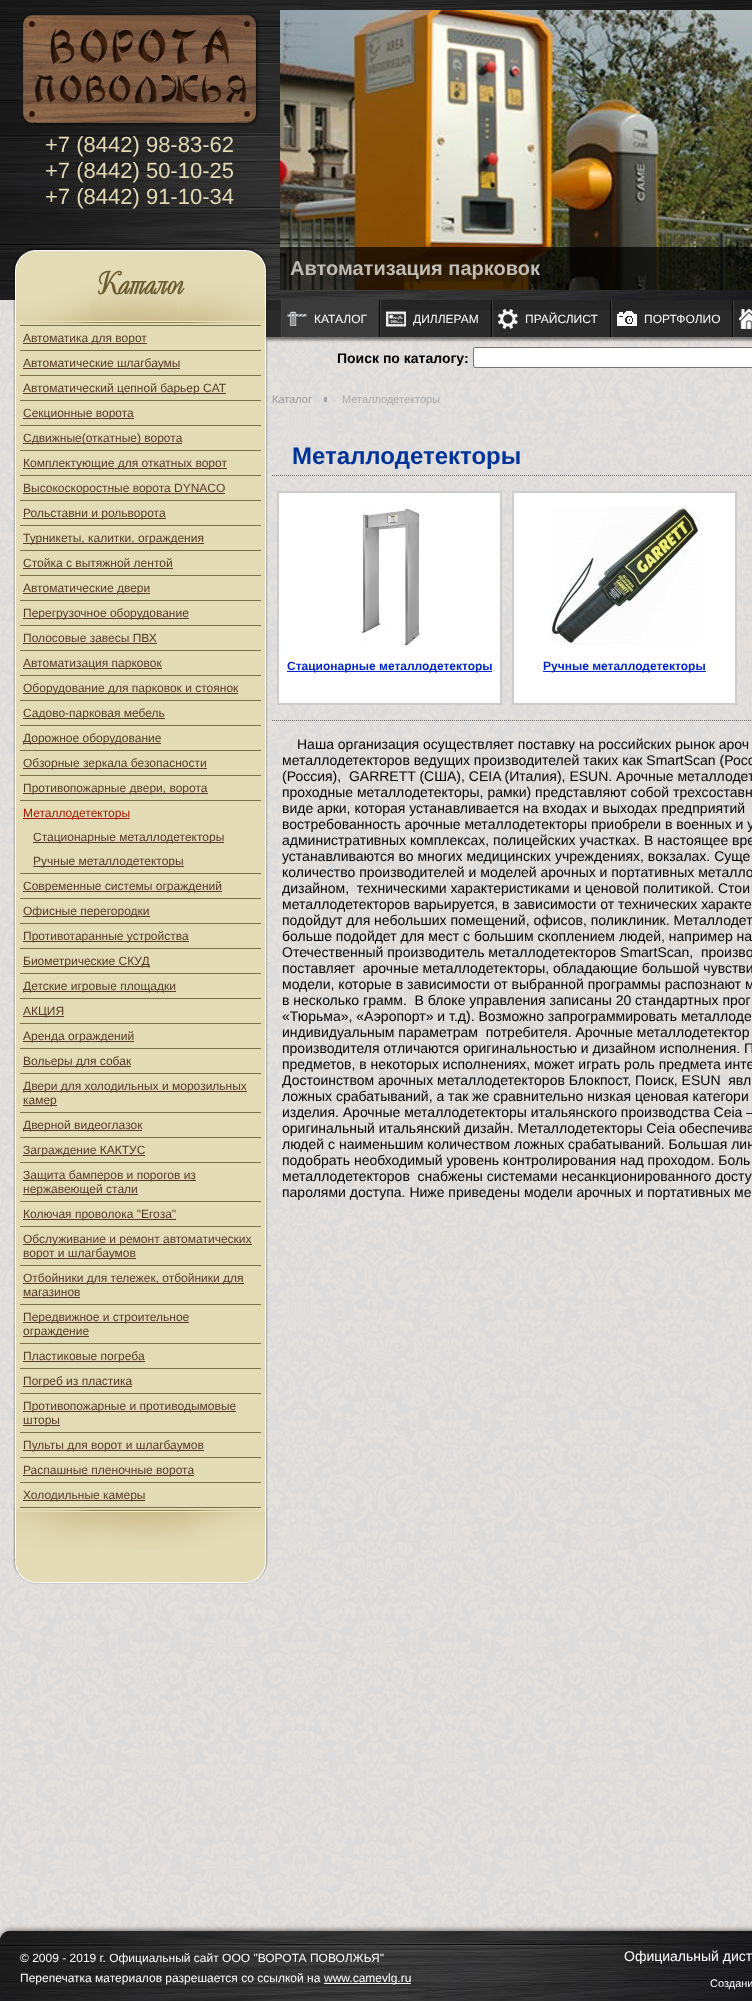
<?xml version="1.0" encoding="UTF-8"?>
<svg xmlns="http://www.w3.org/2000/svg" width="752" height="2001">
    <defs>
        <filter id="blur1" x="-50%" y="-200%" width="200%" height="500%"><feGaussianBlur stdDeviation="1.5"/></filter>
        <filter id="blur2" x="-50%" y="-200%" width="200%" height="500%"><feGaussianBlur stdDeviation="3.5"/></filter>
    </defs>
    <rect width="100%" height="100%" fill="#FFFFFF"/>
    <image x="0" y="300" width="752" height="1641" href="img_01.png"/>
    <image x="0" y="0" width="752" height="300" href="img_02.png"/>
    <image x="22" y="14" width="238" height="112" href="img_03.png"/>
    <text font-family="Liberation Sans" font-size="22" fill="#E1D9B4">
        <tspan x="45" y="152">+7 (8442) 98-83-62</tspan>
        <tspan x="45" y="178">+7 (8442) 50-10-25</tspan>
        <tspan x="45" y="204">+7 (8442) 91-10-34</tspan>
    </text>
    <image x="280" y="10" width="472" height="280" href="img_04.png"/>
    <rect x="280" y="247" width="472" height="43" fill="#000000" fill-opacity="0.7"/>
    <text x="290" y="275" font-family="Liberation Sans" font-size="20" font-weight="700" fill="#BFBBB6">Автоматизация парковок</text>
    <rect x="266" y="303" width="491" height="37" fill="#000000" fill-opacity="0.5" filter="url(#blur1)"/>
    <rect x="266" y="310" width="15" height="27" fill="#2B2B2B"/>
    <rect x="266" y="300" width="15" height="10" fill="#252525"/>
    <image x="13" y="247" width="255" height="78" href="img_05.png"/>
    <text x="97" y="294" font-family="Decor" font-size="32" font-weight="700" fill="#695B2E">Каталог</text>
    <image x="13" y="325" width="255" height="1183" href="img_06.png"/>
    <rect x="20" y="325" width="241" height="1" fill="#787148"/>
    <rect x="20" y="350" width="241" height="1" fill="#787148"/>
    <rect x="23" y="343" width="124" height="1" fill="#563C26"/>
    <text x="23" y="342" font-family="Liberation Sans" font-size="12" fill="#563C26">Автоматика для ворот</text>
    <rect x="20" y="375" width="241" height="1" fill="#787148"/>
    <rect x="23" y="368" width="157" height="1" fill="#563C26"/>
    <text x="23" y="367" font-family="Liberation Sans" font-size="12" fill="#563C26">Автоматические шлагбаумы</text>
    <rect x="20" y="400" width="241" height="1" fill="#787148"/>
    <rect x="23" y="393" width="203" height="1" fill="#563C26"/>
    <text x="23" y="392" font-family="Liberation Sans" font-size="12" fill="#563C26">Автоматический цепной барьер CAT</text>
    <rect x="20" y="425" width="241" height="1" fill="#787148"/>
    <rect x="23" y="418" width="111" height="1" fill="#563C26"/>
    <text x="23" y="417" font-family="Liberation Sans" font-size="12" fill="#563C26">Секционные ворота</text>
    <rect x="20" y="450" width="241" height="1" fill="#787148"/>
    <rect x="23" y="443" width="159" height="1" fill="#563C26"/>
    <text x="23" y="442" font-family="Liberation Sans" font-size="12" fill="#563C26">Сдвижные(откатные) ворота</text>
    <rect x="20" y="475" width="241" height="1" fill="#787148"/>
    <rect x="23" y="468" width="204" height="1" fill="#563C26"/>
    <text x="23" y="467" font-family="Liberation Sans" font-size="12" fill="#563C26">Комплектующие для откатных ворот</text>
    <rect x="20" y="500" width="241" height="1" fill="#787148"/>
    <rect x="23" y="493" width="202" height="1" fill="#563C26"/>
    <text x="23" y="492" font-family="Liberation Sans" font-size="12" fill="#563C26">Высокоскоростные ворота DYNACO</text>
    <rect x="20" y="525" width="241" height="1" fill="#787148"/>
    <rect x="23" y="518" width="143" height="1" fill="#563C26"/>
    <text x="23" y="517" font-family="Liberation Sans" font-size="12" fill="#563C26">Рольставни и рольворота</text>
    <rect x="20" y="550" width="241" height="1" fill="#787148"/>
    <rect x="23" y="543" width="181" height="1" fill="#563C26"/>
    <text x="23" y="542" font-family="Liberation Sans" font-size="12" fill="#563C26">Турникеты, калитки, ограждения</text>
    <rect x="20" y="575" width="241" height="1" fill="#787148"/>
    <text x="23" y="567" font-family="Liberation Sans" font-size="12" fill="#563C26">Стойка с вытяжной лентой</text>
    <rect x="23" y="568" width="150" height="1" fill="#563C26"/>
    <rect x="20" y="600" width="241" height="1" fill="#787148"/>
    <rect x="23" y="593" width="127" height="1" fill="#563C26"/>
    <text x="23" y="592" font-family="Liberation Sans" font-size="12" fill="#563C26">Автоматические двери</text>
    <rect x="20" y="625" width="241" height="1" fill="#787148"/>
    <rect x="23" y="618" width="166" height="1" fill="#563C26"/>
    <text x="23" y="617" font-family="Liberation Sans" font-size="12" fill="#563C26">Перегрузочное оборудование</text>
    <rect x="20" y="650" width="241" height="1" fill="#787148"/>
    <text x="23" y="642" font-family="Liberation Sans" font-size="12" fill="#563C26">Полосовые завесы ПВХ</text>
    <rect x="23" y="643" width="134" height="1" fill="#563C26"/>
    <rect x="20" y="675" width="241" height="1" fill="#787148"/>
    <rect x="23" y="668" width="139" height="1" fill="#563C26"/>
    <text x="23" y="667" font-family="Liberation Sans" font-size="12" fill="#563C26">Автоматизация парковок</text>
    <rect x="20" y="700" width="241" height="1" fill="#787148"/>
    <rect x="23" y="693" width="215" height="1" fill="#563C26"/>
    <text x="23" y="692" font-family="Liberation Sans" font-size="12" fill="#563C26">Оборудование для парковок и стоянок</text>
    <rect x="20" y="725" width="241" height="1" fill="#787148"/>
    <rect x="23" y="718" width="142" height="1" fill="#563C26"/>
    <text x="23" y="717" font-family="Liberation Sans" font-size="12" fill="#563C26">Садово-парковая мебель</text>
    <rect x="20" y="750" width="241" height="1" fill="#787148"/>
    <rect x="23" y="743" width="138" height="1" fill="#563C26"/>
    <text x="23" y="742" font-family="Liberation Sans" font-size="12" fill="#563C26">Дорожное оборудование</text>
    <rect x="20" y="775" width="241" height="1" fill="#787148"/>
    <rect x="23" y="768" width="184" height="1" fill="#563C26"/>
    <text x="23" y="767" font-family="Liberation Sans" font-size="12" fill="#563C26">Обзорные зеркала безопасности</text>
    <rect x="20" y="800" width="241" height="1" fill="#787148"/>
    <rect x="23" y="793" width="185" height="1" fill="#563C26"/>
    <text x="23" y="792" font-family="Liberation Sans" font-size="12" fill="#563C26">Противопожарные двери, ворота</text>
    <rect x="20" y="873" width="241" height="1" fill="#787148"/>
    <rect x="23" y="818" width="107" height="1" fill="#A41B00"/>
    <text x="23" y="817" font-family="Liberation Sans" font-size="12" fill="#A41B00">Металлодетекторы</text>
    <rect x="33" y="842" width="191" height="1" fill="#563C26"/>
    <text x="33" y="841" font-family="Liberation Sans" font-size="12" fill="#563C26">Стационарные металлодетекторы</text>
    <rect x="33" y="866" width="151" height="1" fill="#563C26"/>
    <text x="33" y="865" font-family="Liberation Sans" font-size="12" fill="#563C26">Ручные металлодетекторы</text>
    <rect x="20" y="898" width="241" height="1" fill="#787148"/>
    <rect x="23" y="891" width="199" height="1" fill="#563C26"/>
    <text x="23" y="890" font-family="Liberation Sans" font-size="12" fill="#563C26">Современные системы ограждений</text>
    <rect x="20" y="923" width="241" height="1" fill="#787148"/>
    <rect x="23" y="916" width="127" height="1" fill="#563C26"/>
    <text x="23" y="915" font-family="Liberation Sans" font-size="12" fill="#563C26">Офисные перегородки</text>
    <rect x="20" y="948" width="241" height="1" fill="#787148"/>
    <rect x="23" y="941" width="166" height="1" fill="#563C26"/>
    <text x="23" y="940" font-family="Liberation Sans" font-size="12" fill="#563C26">Противотаранные устройства</text>
    <rect x="20" y="973" width="241" height="1" fill="#787148"/>
    <rect x="23" y="966" width="127" height="1" fill="#563C26"/>
    <text x="23" y="965" font-family="Liberation Sans" font-size="12" fill="#563C26">Биометрические СКУД</text>
    <rect x="20" y="998" width="241" height="1" fill="#787148"/>
    <rect x="23" y="991" width="153" height="1" fill="#563C26"/>
    <text x="23" y="990" font-family="Liberation Sans" font-size="12" fill="#563C26">Детские игровые площадки</text>
    <rect x="20" y="1023" width="241" height="1" fill="#787148"/>
    <rect x="23" y="1016" width="41" height="1" fill="#563C26"/>
    <text x="23" y="1015" font-family="Liberation Sans" font-size="12" fill="#563C26">АКЦИЯ</text>
    <rect x="20" y="1048" width="241" height="1" fill="#787148"/>
    <rect x="23" y="1041" width="111" height="1" fill="#563C26"/>
    <text x="23" y="1040" font-family="Liberation Sans" font-size="12" fill="#563C26">Аренда ограждений</text>
    <rect x="20" y="1073" width="241" height="1" fill="#787148"/>
    <rect x="23" y="1066" width="108" height="1" fill="#563C26"/>
    <text x="23" y="1065" font-family="Liberation Sans" font-size="12" fill="#563C26">Вольеры для собак</text>
    <rect x="20" y="1112" width="241" height="1" fill="#787148"/>
    <rect x="23" y="1091" width="224" height="1" fill="#563C26"/>
    <text x="23" y="1090" font-family="Liberation Sans" font-size="12" fill="#563C26">Двери для холодильных и морозильных</text>
    <rect x="23" y="1105" width="34" height="1" fill="#563C26"/>
    <text x="23" y="1104" font-family="Liberation Sans" font-size="12" fill="#563C26">камер</text>
    <rect x="20" y="1137" width="241" height="1" fill="#787148"/>
    <rect x="23" y="1130" width="119" height="1" fill="#563C26"/>
    <text x="23" y="1129" font-family="Liberation Sans" font-size="12" fill="#563C26">Дверной видеоглазок</text>
    <rect x="20" y="1162" width="241" height="1" fill="#787148"/>
    <rect x="23" y="1155" width="122" height="1" fill="#563C26"/>
    <text x="23" y="1154" font-family="Liberation Sans" font-size="12" fill="#563C26">Заграждение КАКТУС</text>
    <rect x="20" y="1201" width="241" height="1" fill="#787148"/>
    <rect x="23" y="1180" width="173" height="1" fill="#563C26"/>
    <text x="23" y="1179" font-family="Liberation Sans" font-size="12" fill="#563C26">Защита бамперов и порогов из</text>
    <rect x="23" y="1194" width="115" height="1" fill="#563C26"/>
    <text x="23" y="1193" font-family="Liberation Sans" font-size="12" fill="#563C26">нержавеющей стали</text>
    <rect x="20" y="1226" width="241" height="1" fill="#787148"/>
    <rect x="23" y="1219" width="153" height="1" fill="#563C26"/>
    <text x="23" y="1218" font-family="Liberation Sans" font-size="12" fill="#563C26">Колючая проволока "Егоза"</text>
    <rect x="20" y="1265" width="241" height="1" fill="#787148"/>
    <rect x="23" y="1244" width="229" height="1" fill="#563C26"/>
    <text x="23" y="1243" font-family="Liberation Sans" font-size="12" fill="#563C26">Обслуживание и ремонт автоматических</text>
    <rect x="23" y="1258" width="113" height="1" fill="#563C26"/>
    <text x="23" y="1257" font-family="Liberation Sans" font-size="12" fill="#563C26">ворот и шлагбаумов</text>
    <rect x="20" y="1304" width="241" height="1" fill="#787148"/>
    <rect x="23" y="1283" width="221" height="1" fill="#563C26"/>
    <text font-family="Liberation Sans" font-size="12" fill="#563C26">
        <tspan x="23" y="1282">Отбойники для тележек, отбойники для</tspan>
        <tspan x="23" y="1296">магазинов</tspan>
    </text>
    <rect x="23" y="1297" width="57" height="1" fill="#563C26"/>
    <rect x="20" y="1343" width="241" height="1" fill="#787148"/>
    <rect x="23" y="1322" width="166" height="1" fill="#563C26"/>
    <text x="23" y="1321" font-family="Liberation Sans" font-size="12" fill="#563C26">Передвижное и строительное</text>
    <rect x="23" y="1336" width="66" height="1" fill="#563C26"/>
    <text x="23" y="1335" font-family="Liberation Sans" font-size="12" fill="#563C26">ограждение</text>
    <rect x="20" y="1368" width="241" height="1" fill="#787148"/>
    <rect x="23" y="1361" width="122" height="1" fill="#563C26"/>
    <text x="23" y="1360" font-family="Liberation Sans" font-size="12" fill="#563C26">Пластиковые погреба</text>
    <rect x="20" y="1393" width="241" height="1" fill="#787148"/>
    <rect x="23" y="1386" width="109" height="1" fill="#563C26"/>
    <text x="23" y="1385" font-family="Liberation Sans" font-size="12" fill="#563C26">Погреб из пластика</text>
    <rect x="20" y="1432" width="241" height="1" fill="#787148"/>
    <rect x="23" y="1411" width="213" height="1" fill="#563C26"/>
    <text x="23" y="1410" font-family="Liberation Sans" font-size="12" fill="#563C26">Противопожарные и противодымовые</text>
    <rect x="23" y="1425" width="37" height="1" fill="#563C26"/>
    <text x="23" y="1424" font-family="Liberation Sans" font-size="12" fill="#563C26">шторы</text>
    <rect x="20" y="1457" width="241" height="1" fill="#787148"/>
    <rect x="23" y="1450" width="181" height="1" fill="#563C26"/>
    <text x="23" y="1449" font-family="Liberation Sans" font-size="12" fill="#563C26">Пульты для ворот и шлагбаумов</text>
    <rect x="20" y="1482" width="241" height="1" fill="#787148"/>
    <rect x="23" y="1475" width="171" height="1" fill="#563C26"/>
    <text x="23" y="1474" font-family="Liberation Sans" font-size="12" fill="#563C26">Распашные пленочные ворота</text>
    <rect x="20" y="1507" width="241" height="1" fill="#787148"/>
    <rect x="23" y="1500" width="122" height="1" fill="#563C26"/>
    <text x="23" y="1499" font-family="Liberation Sans" font-size="12" fill="#563C26">Холодильные камеры</text>
    <image x="13" y="1508" width="255" height="76" href="img_07.png"/>
    <rect x="282" y="300" width="97" height="37" fill="#3B3B3B"/>
    <image x="287" y="311" width="20" height="15" href="img_08.png"/>
    <rect x="379" y="300" width="1" height="37" fill="#000000"/>
    <rect x="281" y="300" width="1" height="37" fill="#424242"/>
    <text x="314" y="323" font-family="Liberation Sans" font-size="12" fill="#FFFFFF">КАТАЛОГ</text>
    <rect x="381" y="310" width="110" height="27" fill="#2B2B2B"/>
    <rect x="381" y="300" width="110" height="10" fill="#252525"/>
    <image x="386" y="311" width="20" height="16" href="img_09.png"/>
    <rect x="491" y="300" width="1" height="37" fill="#000000"/>
    <rect x="380" y="300" width="1" height="37" fill="#424242"/>
    <text x="413" y="323" font-family="Liberation Sans" font-size="12" fill="#FFFFFF">ДИЛЛЕРАМ</text>
    <rect x="493" y="310" width="117" height="27" fill="#2B2B2B"/>
    <rect x="493" y="300" width="117" height="10" fill="#252525"/>
    <image x="498" y="309" width="20" height="20" href="img_10.png"/>
    <rect x="610" y="300" width="1" height="37" fill="#000000"/>
    <rect x="492" y="300" width="1" height="37" fill="#424242"/>
    <text x="525" y="323" font-family="Liberation Sans" font-size="12" fill="#FFFFFF">ПРАЙСЛИСТ</text>
    <rect x="612" y="310" width="120" height="27" fill="#2B2B2B"/>
    <rect x="612" y="300" width="120" height="10" fill="#252525"/>
    <image x="617" y="311" width="20" height="15" href="img_11.png"/>
    <rect x="732" y="300" width="1" height="37" fill="#000000"/>
    <rect x="611" y="300" width="1" height="37" fill="#424242"/>
    <text x="644" y="323" font-family="Liberation Sans" font-size="12" fill="#FFFFFF">ПОРТФОЛИО</text>
    <rect x="734" y="310" width="18" height="27" fill="#2B2B2B"/>
    <rect x="734" y="300" width="18" height="10" fill="#252525"/>
    <image x="739" y="309" width="13" height="20" href="img_12.png"/>
    <rect x="733" y="300" width="1" height="37" fill="#424242"/>
    <text x="337" y="363" font-family="Liberation Sans" font-size="14" font-weight="700" fill="#000000">Поиск по каталогу:</text>
    <rect x="473.5" y="347.5" width="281" height="20" rx="1.5" fill="#FFFFFF" stroke="#767676"/>
    <rect x="324" y="397" width="3" height="5" fill="#A6A5A4"/>
    <text x="272" y="403" font-family="Liberation Sans" font-size="11" fill="#9A9998">Каталог</text>
    <text x="342" y="403" font-family="Liberation Sans" font-size="11" fill="#AAAAAA">Металлодетекторы</text>
    <path d="M 272 475.5 H 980" fill="none" stroke="#666666" stroke-dasharray="1 1"/>
    <text x="292" y="464" font-family="Liberation Sans" font-size="24" font-weight="700" fill="#003399">Металлодетекторы</text>
    <rect x="278" y="492" width="223" height="212" fill="#FFFFFF" stroke="#CCCCCC" stroke-width="2"/>
    <image x="357" y="508" width="63" height="141" href="img_13.png"/>
    <rect x="287" y="671" width="205" height="1" fill="#0026CB"/>
    <text x="287" y="670" font-family="Liberation Sans" font-size="12" font-weight="700" fill="#0026CB">Стационарные металлодетекторы</text>
    <rect x="513" y="492" width="223" height="212" fill="#FFFFFF" stroke="#CCCCCC" stroke-width="2"/>
    <image x="550" y="503" width="150" height="142" href="img_14.png"/>
    <rect x="543" y="671" width="163" height="1" fill="#0026CB"/>
    <text x="543" y="670" font-family="Liberation Sans" font-size="12" font-weight="700" fill="#0026CB">Ручные металлодетекторы</text>
    <path d="M 272 720.5 H 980" fill="none" stroke="#666666" stroke-dasharray="1 1"/>
    <text x="297" y="749" font-family="Liberation Sans" font-size="14" fill="#000000">Наша организация осуществляет поставку на российских рынок ароч</text>
    <text font-family="Liberation Sans" font-size="14" fill="#000000" xml:space="preserve"><tspan x="282" y="765">металлодетекторов ведущих производителей таких как SmartScan (Росс</tspan><tspan x="282" y="781">(Россия),  GARRETT (США), CEIA (Италия), ESUN. Арочные металлодет</tspan><tspan x="282" y="797">проходные металлодетекторы, рамки) представляют собой трехсоставн</tspan><tspan x="282" y="813">виде арки, которая устанавливается на входах и выходах предприятий</tspan><tspan x="282" y="829">востребованность арочные металлодетекторы приобрели в военных и у</tspan><tspan x="282" y="845">административных комплексах, полицейских участках. В настоящее вре</tspan><tspan x="282" y="861">устанавливаются во многих медицинских учреждениях, вокзалах. Суще</tspan><tspan x="282" y="877">количество производителей и моделей арочных и портативных металло</tspan><tspan x="282" y="893">дизайном,  техническими характеристиками и ценовой политикой. Стои</tspan><tspan x="282" y="909">металлодетекторов варьируется, в зависимости от технических характе</tspan><tspan x="282" y="925">подойдут для небольших помещений, офисов, поликлиник. Металлодет</tspan><tspan x="282" y="941">больше подойдет для мест с большим скоплением людей, например на</tspan><tspan x="282" y="957">Отечественный производитель металлодетекторов SmartScan,  произво</tspan><tspan x="282" y="973">поставляет  арочные металлодетекторы, обладающие большой чувстви</tspan><tspan x="282" y="989">модели, которые в зависимости от выбранной программы распознают м</tspan><tspan x="282" y="1005">в несколько грамм.  В блоке управления записаны 20 стандартных прог</tspan><tspan x="282" y="1021">«Тюрьма», «Аэропорт» и т.д). Возможно запрограммировать металлоде</tspan><tspan x="282" y="1037">индивидуальным параметрам  потребителя. Арочные металлодетектор</tspan><tspan x="282" y="1053">производителя отличаются оригинальностью и дизайном исполнения. П</tspan><tspan x="282" y="1069">предметов, в некоторых исполнениях, может играть роль предмета инте</tspan><tspan x="282" y="1085">Достоинством арочных металлодетекторов Блокпост, Поиск, ESUN  явл</tspan><tspan x="282" y="1101">ложных срабатываний, а так же сравнительно низкая ценовая категори</tspan><tspan x="282" y="1117">изделия. Арочные металлодетекторы итальянского производства Ceia –</tspan><tspan x="282" y="1133">оригинальный итальянский дизайн. Металлодетекторы Ceia обеспечива</tspan><tspan x="282" y="1149">людей с наименьшим количеством ложных срабатываний. Большая лин</tspan><tspan x="282" y="1165">подобрать необходимый уровень контролирования над проходом. Боль</tspan><tspan x="282" y="1181">металлодетекторов  снабжены системами несанкционированного досту</tspan><tspan x="282" y="1197">паролями доступа. Ниже приведены модели арочных и портативных ме</tspan></text>
    <rect x="1" y="1932" width="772" height="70" rx="10" fill="#000000" fill-opacity="0.9" filter="url(#blur2)"/>
    <path d="M 10 1931 H 752 C 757.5 1931 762 1935.5 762 1941 V 2001 H 0 V 1941 C 0 1935.5 4.5 1931 10 1931 Z" fill="#171717"/>
    <image x="0" y="1931" width="752" height="70" href="img_15.png"/>
    <text x="20" y="1962" font-family="Liberation Sans" font-size="12" fill="#FFFFFF">© 2009 - 2019 г. Официальный сайт ООО "ВОРОТА ПОВОЛЖЬЯ"</text>
    <text x="624" y="1961" font-family="Liberation Sans" font-size="14" fill="#FFFFFF">Официальный дист</text>
    <text x="20" y="1982" font-family="Liberation Sans" font-size="12" fill="#FFFFFF">Перепечатка материалов разрешается со ссылкой на</text>
    <rect x="324" y="1983" width="87" height="1" fill="#FFFFFF"/>
    <text x="324" y="1982" font-family="Liberation Sans" font-size="12" fill="#FFFFFF">www.camevlg.ru</text>
    <text x="710" y="1987" font-family="Liberation Sans" font-size="11" fill="#FFFFFF">Создани</text>
</svg>
